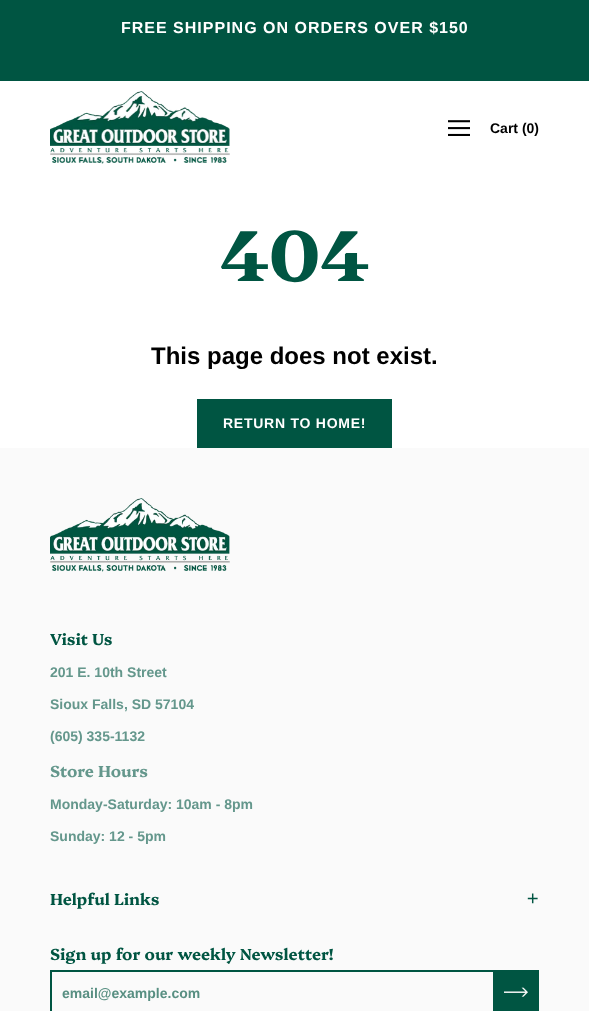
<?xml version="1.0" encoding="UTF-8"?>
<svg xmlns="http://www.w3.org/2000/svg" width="589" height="1011">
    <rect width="100%" height="100%" fill="#FFFFFF"/>
    <rect x="0" y="0" width="589" height="81" fill="#005542"/>
    <text x="121" y="33" font-family="Liberation Sans" font-size="16" font-weight="700" letter-spacing="1" fill="#FFFFFF">FREE SHIPPING ON ORDERS OVER $150</text>
    <image x="50" y="91" width="180" height="73" href="img_01.png"/>
    <image x="448" y="120" width="22" height="16" href="img_02.png"/>
    <text x="490" y="133" font-family="Liberation Sans" font-size="14" font-weight="700" fill="#000000">Cart (0)</text>
    <text x="220" y="281" font-family="Platypi" font-size="72" font-weight="700" fill="#005542">404</text>
    <text x="151" y="364" font-family="Liberation Sans" font-size="24" font-weight="700" fill="#000000">This page does not exist.</text>
    <rect x="198" y="400" width="193" height="47" fill="none" stroke="#005542" stroke-width="2"/>
    <rect x="199" y="401" width="191" height="45" fill="#005542"/>
    <text x="223" y="428" font-family="Liberation Sans" font-size="14" font-weight="700" letter-spacing="0.75" fill="#FFFFFF">RETURN TO HOME!</text>
    <rect x="0" y="448" width="589" height="563" fill="#FAFAFA"/>
    <image x="50" y="498" width="180" height="74" href="img_03.png"/>
    <text x="50" y="645" font-family="Platypi" font-size="16" font-weight="700" fill="#005542">Visit Us</text>
    <text x="50" y="677" font-family="Liberation Sans" font-size="14" font-weight="700" fill="#64978C">201 E. 10th Street</text>
    <text x="50" y="709" font-family="Liberation Sans" font-size="14" font-weight="700" fill="#64978C">Sioux Falls, SD 57104</text>
    <text x="50" y="741" font-family="Liberation Sans" font-size="14" font-weight="700" fill="#64978C">(605) 335-1132</text>
    <text x="50" y="777" font-family="Platypi" font-size="16" font-weight="700" fill="#64978C">Store Hours</text>
    <text x="50" y="809" font-family="Liberation Sans" font-size="14" font-weight="700" fill="#64978C">Monday-Saturday: 10am - 8pm</text>
    <text x="50" y="841" font-family="Liberation Sans" font-size="14" font-weight="700" fill="#64978C">Sunday: 12 - 5pm</text>
    <text x="50" y="905" font-family="Platypi" font-size="16" font-weight="700" fill="#005542">Helpful Links</text>
    <text x="527" y="906" font-family="Platypi" font-size="22" font-weight="700" fill="#005542">+</text>
    <text x="50" y="960" font-family="Platypi" font-size="16" font-weight="700" fill="#005542">Sign up for our weekly Newsletter!</text>
    <rect x="51" y="971" width="443" height="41" fill="none" stroke="#005542" stroke-width="2"/>
    <text x="62" y="998" font-family="Liberation Sans" font-size="14" font-weight="700" fill="#588F82">email@example.com</text>
    <rect x="495" y="970" width="44" height="41" fill="#005542"/>
    <image x="504" y="987" width="24" height="10" href="img_04.png"/>
</svg>
